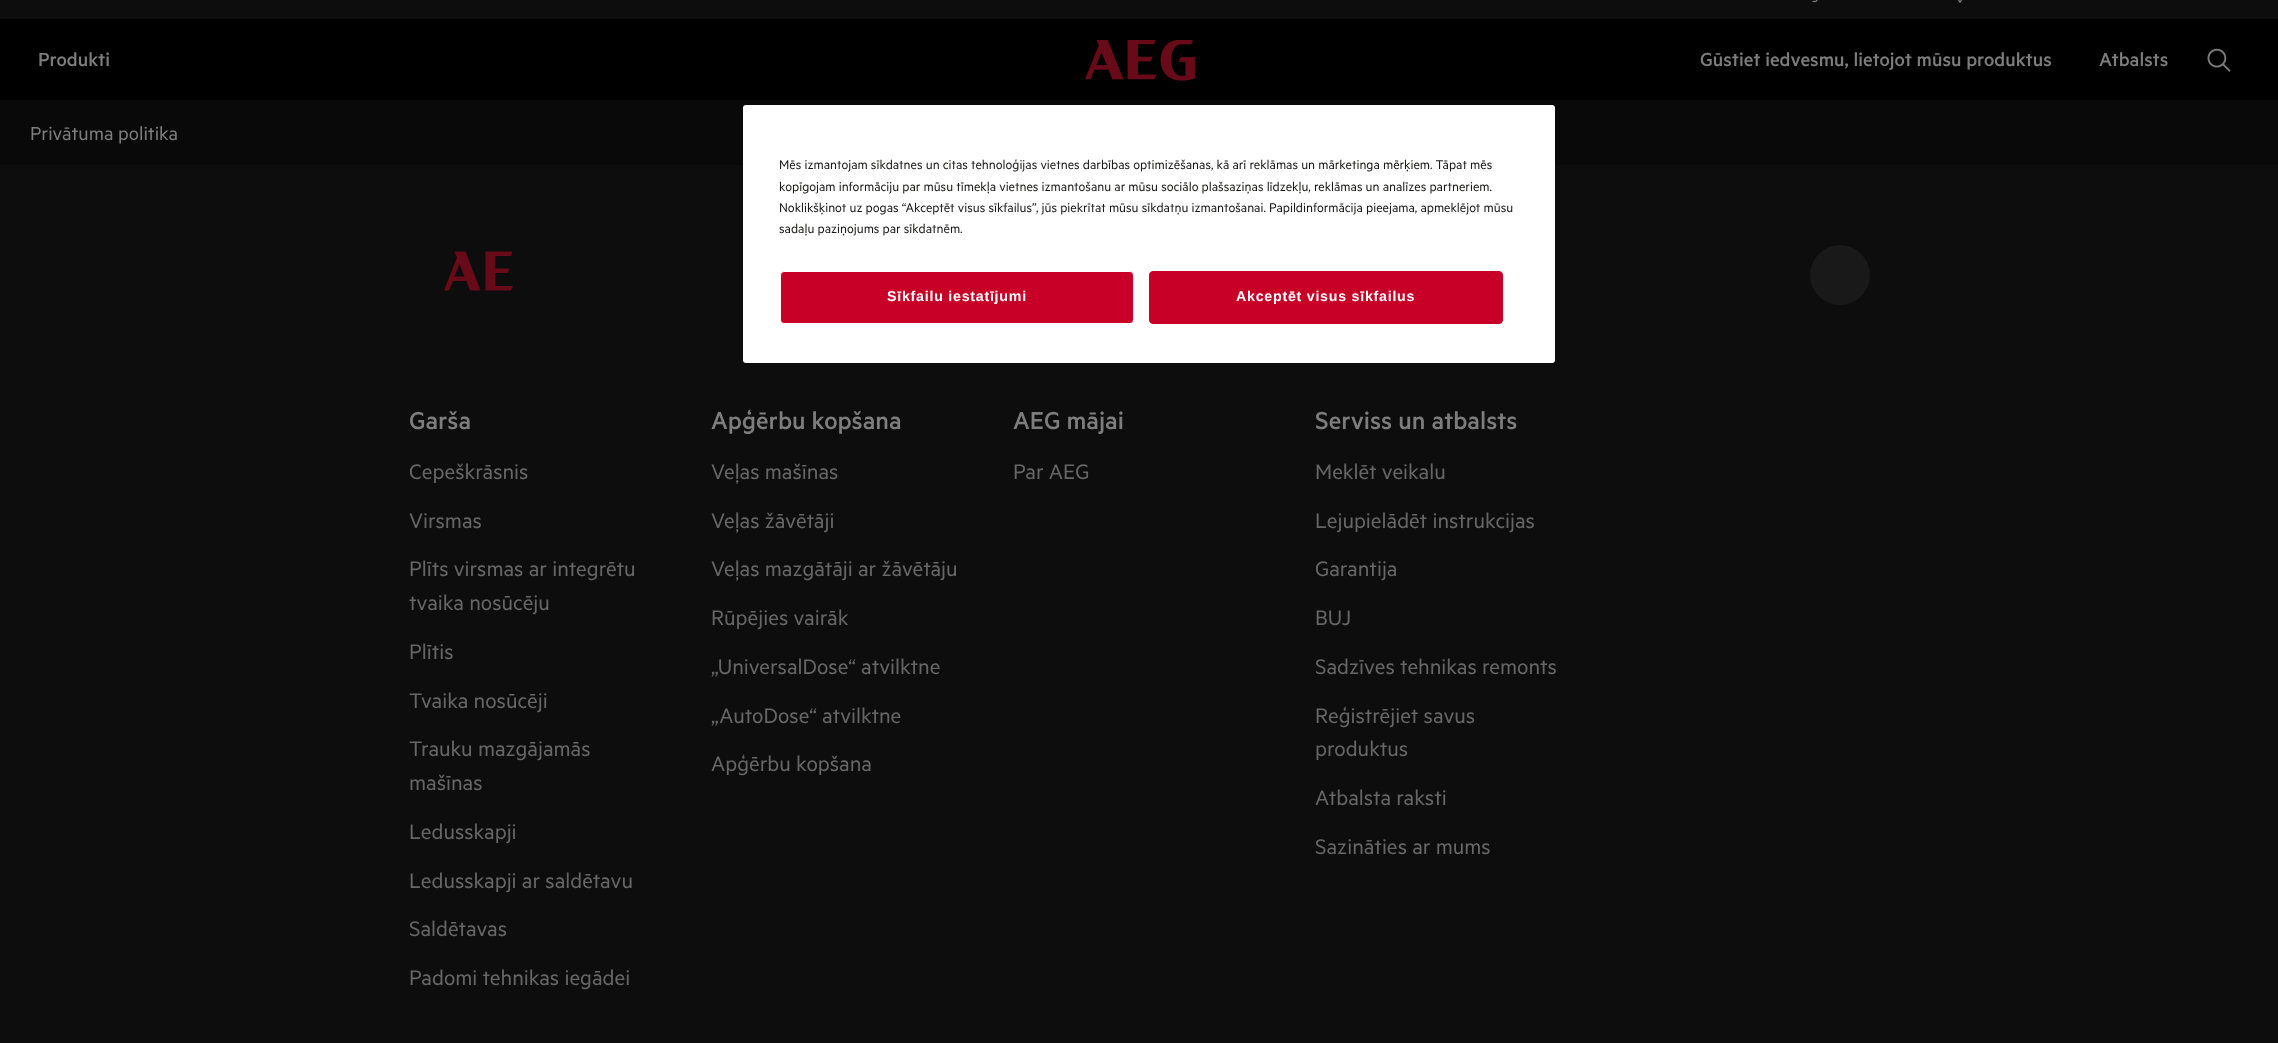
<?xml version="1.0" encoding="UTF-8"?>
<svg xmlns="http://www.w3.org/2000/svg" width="2278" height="1043">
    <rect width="100%" height="100%" fill="#090909"/>
    <rect x="0" y="0" width="2278" height="19" fill="#0D0D0D"/>
    <image x="1812" y="0" width="6" height="3" href="img_01.png"/>
    <image x="1957" y="0" width="6" height="3" href="img_02.png"/>
    <rect x="0" y="19" width="2278" height="81" fill="#000000"/>
    <text x="38" y="66" font-family="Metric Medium" font-size="21.25" font-weight="500" fill="#7D7D7D">Produkti</text>
    <image x="1085" y="40" width="110" height="41" href="img_03.png"/>
    <text x="1700" y="66" font-family="Metric Medium" font-size="21.25" font-weight="500" fill="#7D7D7D">Gūstiet iedvesmu, lietojot mūsu produktus</text>
    <text x="2099" y="66" font-family="Metric Medium" font-size="21.25" font-weight="500" fill="#7D7D7D">Atbalsts</text>
    <image x="2207" y="48" width="24" height="24" href="img_04.png"/>
    <text x="30" y="140" font-family="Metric" font-size="21.25" fill="#7D7D7D">Privātuma politika</text>
    <rect x="0" y="165" width="2278" height="878" fill="#0D0D0D"/>
    <path d="M 454.5 251.5 L 457 257.5 L 444 290.5 H 449 L 453 281 H 466.5 L 470 290.5 H 480.5 L 465.5 251.5 Z M 454.5 276.5 L 459.5 264 L 464.5 276.5 Z" fill="#680A18"/>
    <path d="M 495 273 H 507.5 L 509.5 268.5 H 495 V 256 H 511 L 512.5 251.5 H 485.5 V 290.5 H 511 L 513 286 H 495 Z" fill="#680A18"/>
    <circle cx="1840" cy="275" r="30" fill="#191919"/>
    <text x="409" y="429" font-family="Metric Medium" font-size="27.5" font-weight="500" fill="#7D7D7D">Garša</text>
    <text x="409" y="479" font-family="Metric" font-size="23.75" fill="#666666">Cepeškrāsnis</text>
    <text x="409" y="528" font-family="Metric" font-size="23.75" fill="#666666">Virsmas</text>
    <text font-family="Metric" font-size="23.75" fill="#666666">
        <tspan x="409" y="576">Plīts virsmas ar integrētu</tspan>
        <tspan x="409" y="610">tvaika nosūcēju</tspan>
    </text>
    <text x="409" y="659" font-family="Metric" font-size="23.75" fill="#666666">Plītis</text>
    <text x="409" y="708" font-family="Metric" font-size="23.75" fill="#666666">Tvaika nosūcēji</text>
    <text font-family="Metric" font-size="23.75" fill="#666666">
        <tspan x="409" y="756">Trauku mazgājamās</tspan>
        <tspan x="409" y="790">mašīnas</tspan>
    </text>
    <text x="409" y="839" font-family="Metric" font-size="23.75" fill="#666666">Ledusskapji</text>
    <text x="409" y="888" font-family="Metric" font-size="23.75" fill="#666666">Ledusskapji ar saldētavu</text>
    <text x="409" y="936" font-family="Metric" font-size="23.75" fill="#666666">Saldētavas</text>
    <text x="409" y="985" font-family="Metric" font-size="23.75" fill="#666666">Padomi tehnikas iegādei</text>
    <text x="711" y="429" font-family="Metric Medium" font-size="27.5" font-weight="500" fill="#7D7D7D">Apģērbu kopšana</text>
    <text x="711" y="479" font-family="Metric" font-size="23.75" fill="#666666">Veļas mašīnas</text>
    <text x="711" y="528" font-family="Metric" font-size="23.75" fill="#666666">Veļas žāvētāji</text>
    <text x="711" y="576" font-family="Metric" font-size="23.75" fill="#666666">Veļas mazgātāji ar žāvētāju</text>
    <text x="711" y="625" font-family="Metric" font-size="23.75" fill="#666666">Rūpējies vairāk</text>
    <text x="711" y="674" font-family="Metric" font-size="23.75" fill="#666666">„UniversalDose“ atvilktne</text>
    <text x="711" y="723" font-family="Metric" font-size="23.75" fill="#666666">„AutoDose“ atvilktne</text>
    <text x="711" y="771" font-family="Metric" font-size="23.75" fill="#666666">Apģērbu kopšana</text>
    <text x="1013" y="429" font-family="Metric Medium" font-size="27.5" font-weight="500" fill="#7D7D7D">AEG mājai</text>
    <text x="1013" y="479" font-family="Metric" font-size="23.75" fill="#666666">Par AEG</text>
    <text x="1315" y="429" font-family="Metric Medium" font-size="27.5" font-weight="500" fill="#7D7D7D">Serviss un atbalsts</text>
    <text x="1315" y="479" font-family="Metric" font-size="23.75" fill="#666666">Meklēt veikalu</text>
    <text x="1315" y="528" font-family="Metric" font-size="23.75" fill="#666666">Lejupielādēt instrukcijas</text>
    <text x="1315" y="576" font-family="Metric" font-size="23.75" fill="#666666">Garantija</text>
    <text x="1315" y="625" font-family="Metric" font-size="23.75" fill="#666666">BUJ</text>
    <text x="1315" y="674" font-family="Metric" font-size="23.75" fill="#666666">Sadzīves tehnikas remonts</text>
    <text font-family="Metric" font-size="23.75" fill="#666666">
        <tspan x="1315" y="723">Reģistrējiet savus</tspan>
        <tspan x="1315" y="756">produktus</tspan>
    </text>
    <text x="1315" y="805" font-family="Metric" font-size="23.75" fill="#666666">Atbalsta raksti</text>
    <text x="1315" y="854" font-family="Metric" font-size="23.75" fill="#666666">Sazināties ar mums</text>
    <rect x="743" y="105" width="812" height="258" rx="3" fill="#FFFFFF"/>
    <text font-family="Metric" font-size="14.23" fill="#1A1A19">
        <tspan x="779" y="169">Mēs izmantojam sīkdatnes un citas tehnoloģijas vietnes darbības optimizēšanas, kā arī reklāmas un mārketinga mērķiem. Tāpat mēs</tspan>
        <tspan x="779" y="191">kopīgojam informāciju par mūsu tīmekļa vietnes izmantošanu ar mūsu sociālo plašsaziņas līdzekļu, reklāmas un analīzes partneriem.</tspan>
        <tspan x="779" y="212">Noklikšķinot uz pogas “Akceptēt visus sīkfailus”, jūs piekrītat mūsu sīkdatņu izmantošanai. Papildinformācija pieejama, apmeklējot mūsu</tspan>
        <tspan x="779" y="233">sadaļu paziņojums par sīkdatnēm.</tspan>
    </text>
    <rect x="780.5" y="271.5" width="353" height="52" rx="3.5" fill="#C80028" stroke="#FFFFFF"/>
    <text x="887" y="301" font-family="Liberation Sans" font-size="14.23" font-weight="700" letter-spacing="0.75" fill="#FFFFFF">Sīkfailu iestatījumi</text>
    <rect x="1149.5" y="271.5" width="353" height="52" rx="3.5" fill="#C80028" stroke="#C80028"/>
    <text x="1236" y="301" font-family="Liberation Sans" font-size="14.23" font-weight="700" letter-spacing="0.75" fill="#FFFFFF">Akceptēt visus sīkfailus</text>
</svg>
